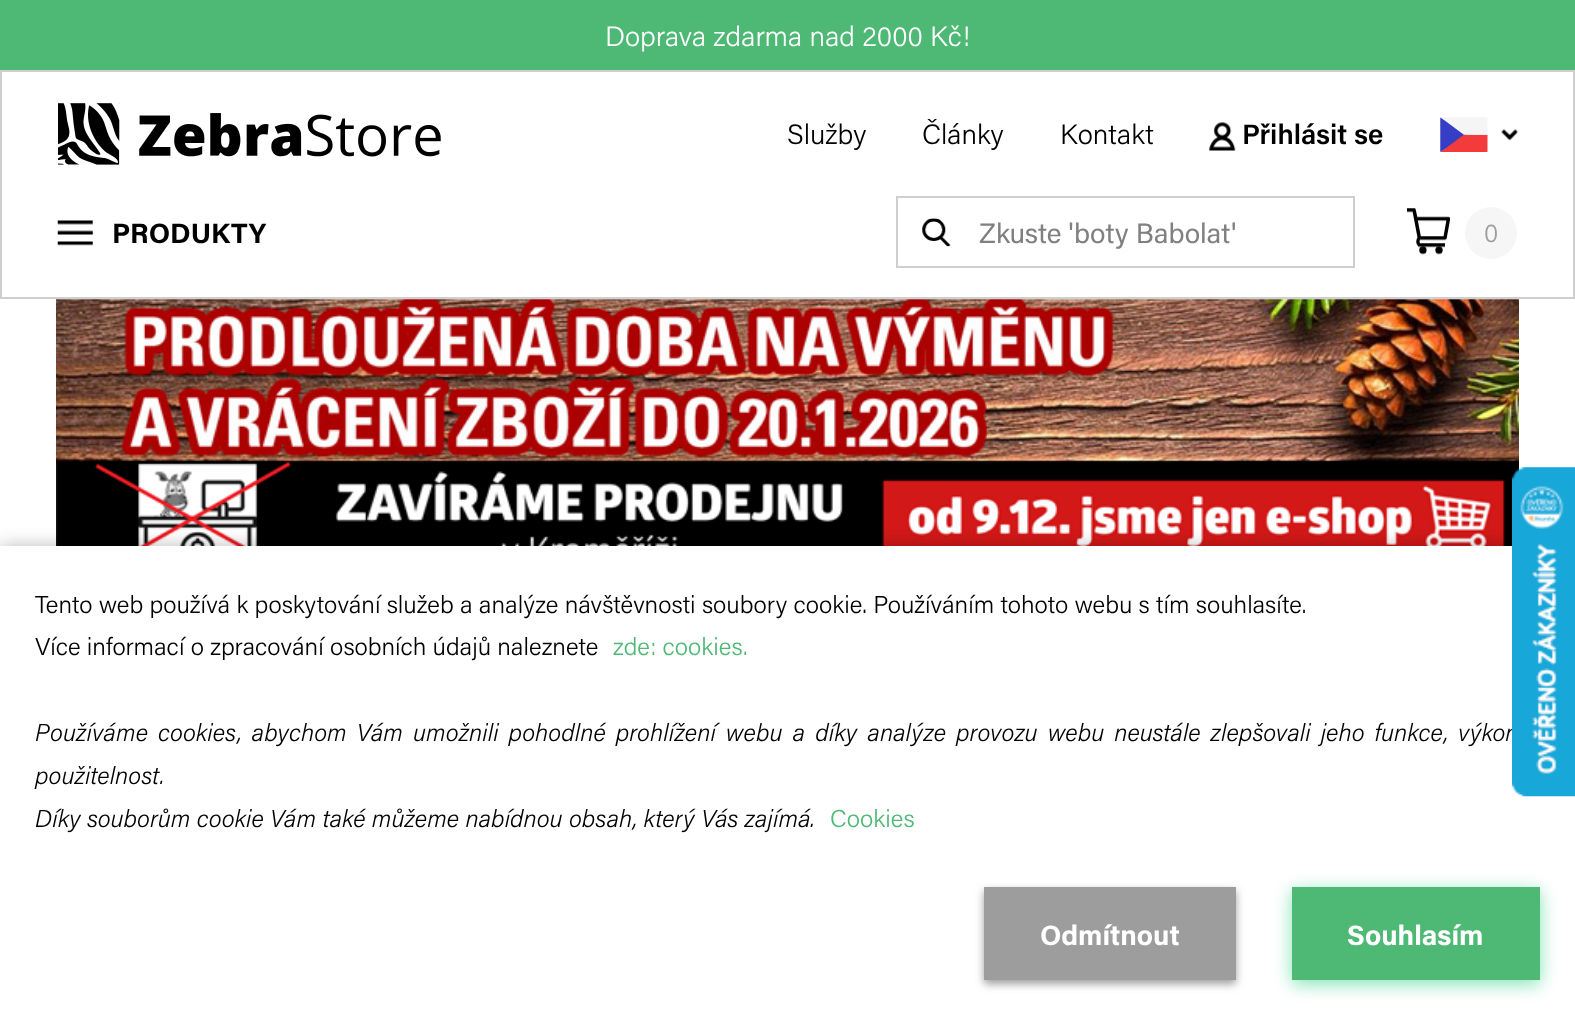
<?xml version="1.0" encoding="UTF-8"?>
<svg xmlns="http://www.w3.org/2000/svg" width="1575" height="1014">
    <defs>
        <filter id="blur1" x="-50%" y="-200%" width="200%" height="500%"><feGaussianBlur stdDeviation="9"/></filter>
        <filter id="blur2" x="-50%" y="-200%" width="200%" height="500%"><feGaussianBlur stdDeviation="4.5"/></filter>
    </defs>
    <rect width="100%" height="100%" fill="#FFFFFF"/>
    <rect x="0" y="0" width="1575" height="70" fill="#4DB975"/>
    <text x="605" y="46" font-family="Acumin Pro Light" font-size="28" font-weight="300" fill="#FFFFFF">Doprava zdarma nad 2000 Kč!</text>
    <rect x="1" y="71" width="1573" height="227" fill="none" stroke="#CFCFCF" stroke-width="2"/>
    <image x="58" y="103" width="383" height="62" href="img_01.png"/>
    <text x="787" y="144" font-family="Acumin Pro Light" font-size="28" font-weight="300" fill="#000000">Služby</text>
    <text x="922" y="144" font-family="Acumin Pro Light" font-size="28" font-weight="300" fill="#000000">Články</text>
    <text x="1060" y="144" font-family="Acumin Pro Light" font-size="28" font-weight="300" fill="#000000">Kontakt</text>
    <image x="1209" y="122" width="27" height="29" href="img_02.png"/>
    <text x="1242" y="144" font-family="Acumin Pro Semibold" font-size="28" font-weight="600" fill="#000000">Přihlásit se</text>
    <image x="1440" y="117" width="48" height="35" href="img_03.png"/>
    <image x="1501" y="129" width="17" height="12" href="img_04.png"/>
    <image x="57" y="220" width="36" height="26" href="img_05.png"/>
    <text x="112" y="243" font-family="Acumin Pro" font-size="28" font-weight="700" fill="#000000">PRODUKTY</text>
    <rect x="897" y="197" width="457" height="70" fill="none" stroke="#CFCFCF" stroke-width="2"/>
    <image x="922" y="218" width="29" height="29" href="img_06.png"/>
    <text x="979" y="243" font-family="Acumin Pro" font-size="28" fill="#808080">Zkuste 'boty Babolat'</text>
    <image x="1407" y="208" width="43" height="47" href="img_07.png"/>
    <circle cx="1491" cy="233" r="26" fill="#F6F6F6"/>
    <text x="1484" y="242" font-family="Acumin Pro Light" font-size="26" font-weight="300" fill="#9D9D9D">0</text>
    <image x="56" y="299" width="1463" height="247" href="img_08.png"/>
    <rect x="0" y="546" width="1575" height="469" fill="#000000" fill-opacity="0.27" filter="url(#blur1)"/>
    <rect x="0" y="546" width="1575" height="468" fill="#FFFFFF"/>
    <text font-family="Acumin Pro Light" font-size="24.5" font-weight="300" fill="#000000">
        <tspan x="35" y="613">Tento web používá k poskytování služeb a analýze návštěvnosti soubory cookie. Používáním tohoto webu s tím souhlasíte.</tspan>
        <tspan x="35" y="655">Více informací o zpracování osobních údajů naleznete</tspan>
    </text>
    <text x="613" y="655" font-family="Acumin Pro Light" font-size="24.5" font-weight="300" fill="#4DB975">zde: cookies.</text>
    <text font-family="Acumin Pro Light" font-size="24.5" font-weight="300" font-style="italic" fill="#000000">
        <tspan x="35" y="741" word-spacing="3.75">Používáme cookies, abychom Vám umožnili pohodlné prohlížení webu a díky analýze provozu webu neustále zlepšovali jeho funkce, výkon</tspan>
        <tspan x="35" y="784">použitelnost.</tspan>
        <tspan x="35" y="827">Díky souborům cookie Vám také můžeme nabídnou obsah, který Vás zajímá.</tspan>
    </text>
    <text x="830" y="827" font-family="Acumin Pro Light" font-size="24.5" font-weight="300" fill="#4DB975">Cookies</text>
    <rect x="984" y="891" width="252" height="93" fill="#9D9D9D" filter="url(#blur2)"/>
    <rect x="984" y="887" width="252" height="93" fill="#9D9D9D"/>
    <text x="1040" y="945" font-family="Acumin Pro" font-size="28" font-weight="700" fill="#FFFFFF">Odmítnout</text>
    <rect x="1292" y="891" width="248" height="93" fill="#03C66B" fill-opacity="0.5" filter="url(#blur1)"/>
    <rect x="1292" y="887" width="248" height="93" fill="#4DB975"/>
    <text x="1347" y="945" font-family="Acumin Pro" font-size="28" font-weight="700" fill="#FFFFFF">Souhlasím</text>
    <image x="1512" y="467" width="63" height="330" href="img_09.png"/>
</svg>
